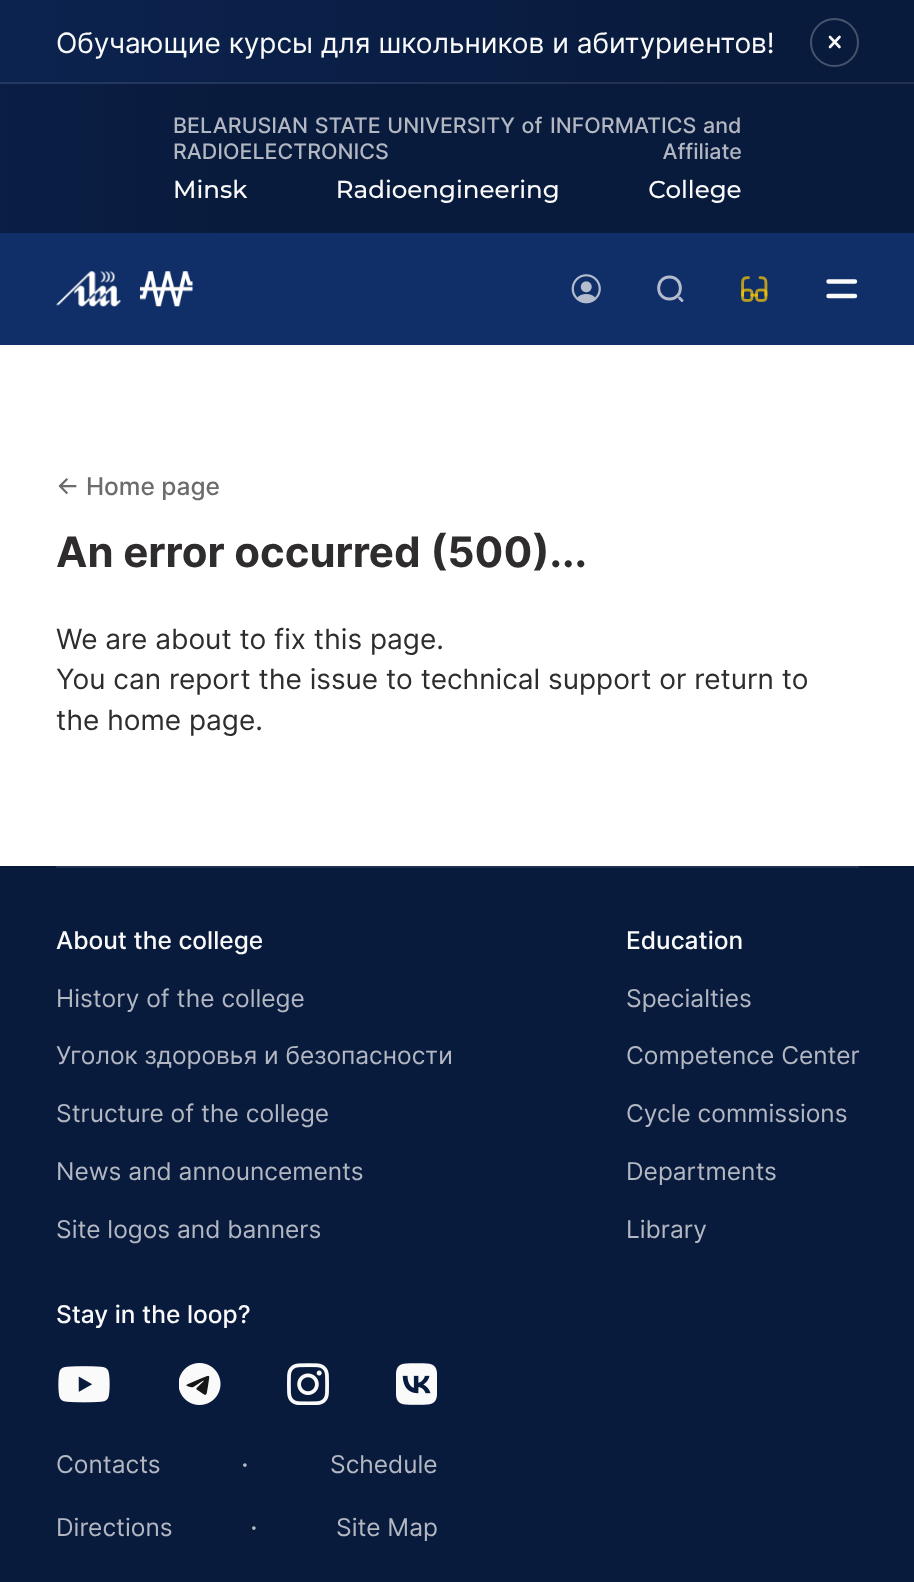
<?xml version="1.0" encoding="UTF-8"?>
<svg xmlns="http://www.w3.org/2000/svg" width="914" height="1582">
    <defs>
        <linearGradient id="g1" gradientUnits="userSpaceOnUse" x1="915" y1="42" x2="-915" y2="42"><stop offset="0" stop-color="#091B3D"/><stop offset="0.12" stop-color="#091B3D"/><stop offset="1" stop-color="#102E68"/></linearGradient>
        <linearGradient id="g2" gradientUnits="userSpaceOnUse" x1="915" y1="42" x2="-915" y2="42"><stop offset="0" stop-color="#213150"/><stop offset="0.12" stop-color="#213150"/><stop offset="1" stop-color="#274277"/></linearGradient>
        <linearGradient id="g3" gradientUnits="userSpaceOnUse" x1="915" y1="158" x2="-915" y2="158"><stop offset="0" stop-color="#091B3D"/><stop offset="0.38" stop-color="#091B3D"/><stop offset="1" stop-color="#102E68"/></linearGradient>
    </defs>
    <rect width="100%" height="100%" fill="#FFFFFF"/>
    <rect x="0" y="0" width="914" height="82" fill="url(#g1)"/>
    <rect x="0" y="82" width="914" height="2" fill="url(#g2)"/>
    <text x="56" y="53" font-family="Inter" font-size="28" fill="#FAFAFA">Обучающие курсы для школьников и абитуриентов!</text>
    <circle cx="834.5" cy="42.5" r="23.5" fill="none" stroke="#45536C" stroke-width="2"/>
    <path d="M 830 37 L 839.5 47 M 830 47 L 839.5 37" fill="none" stroke="#FAFAFA" stroke-width="2.6" stroke-linecap="round" stroke-linejoin="round"/>
    <rect x="0" y="84" width="914" height="149" fill="url(#g3)"/>
    <text x="173" y="133" word-spacing="1" font-family="Inter" font-size="21.45" font-weight="500" fill="#B2B7C1">BELARUSIAN STATE UNIVERSITY of</text>
    <text x="550" y="133" word-spacing="1" font-family="Inter" font-size="21.45" font-weight="500" fill="#B2B7C1">INFORMATICS and</text>
    <text x="173" y="159" word-spacing="268" font-family="Inter" font-size="21.45" font-weight="500" fill="#B2B7C1">RADIOELECTRONICS Affiliate</text>
    <text x="173" y="198" word-spacing="82" font-family="Montserrat" font-size="24.5" font-weight="500" fill="#FAFAFA">Minsk Radioengineering College</text>
    <rect x="0" y="233" width="914" height="112" fill="#102E68"/>
    <image x="56" y="271" width="65" height="36" href="img_01.png"/>
    <image x="140" y="271" width="53" height="36" href="img_02.png"/>
    <image x="571" y="274" width="30" height="30" href="img_03.png"/>
    <path d="M 669.5 299 C 684 299 684 277 669.5 277 C 655 277 655 299 669.5 299 Z M 682 300.5 L 679.5 298" fill="none" stroke="#B4BDCE" stroke-width="2.9" stroke-linecap="round" stroke-linejoin="round"/>
    <image x="741" y="276" width="27" height="26" href="img_04.png"/>
    <path d="M 828.5 281.5 H 855 M 828.5 296 H 855" fill="none" stroke="#FAFAFA" stroke-width="4.4" stroke-linecap="round" stroke-linejoin="round"/>
    <text x="56" y="495" font-family="Inter" font-size="24.5" font-weight="500" fill="#6D6B6B">← Home page</text>
    <text x="56" y="567" font-family="Inter" font-size="42" font-weight="700" fill="#2E2C2C">An error occurred (500)...</text>
    <text font-family="Inter" font-size="28" fill="#2E2C2C">
        <tspan x="56" y="649">We are about to fix this page.</tspan>
        <tspan x="56" y="689">You can report the issue to technical support or return to</tspan>
        <tspan x="56" y="730">the home page.</tspan>
    </text>
    <rect x="0" y="866" width="914" height="716" fill="#091B3D"/>
    <rect x="56" y="866" width="803" height="2" fill="#213150"/>
    <text x="56" y="949" font-family="Inter" font-size="24.5" font-weight="500" fill="#FAFAFA">About the college</text>
    <text x="56" y="1007" font-family="Inter" font-size="24.5" fill="#B2B7C1">History of the college</text>
    <text x="56" y="1064" font-family="Inter" font-size="24.5" fill="#B2B7C1">Уголок здоровья и безопасности</text>
    <text x="56" y="1122" font-family="Inter" font-size="24.5" fill="#B2B7C1">Structure of the college</text>
    <text x="56" y="1180" font-family="Inter" font-size="24.5" fill="#B2B7C1">News and announcements</text>
    <text x="56" y="1238" font-family="Inter" font-size="24.5" fill="#B2B7C1">Site logos and banners</text>
    <text x="626" y="949" font-family="Inter" font-size="24.5" font-weight="500" fill="#FAFAFA">Education</text>
    <text x="626" y="1007" font-family="Inter" font-size="24.5" fill="#B2B7C1">Specialties</text>
    <text x="626" y="1064" font-family="Inter" font-size="24.5" fill="#B2B7C1">Competence Center</text>
    <text x="626" y="1122" font-family="Inter" font-size="24.5" fill="#B2B7C1">Cycle commissions</text>
    <text x="626" y="1180" font-family="Inter" font-size="24.5" fill="#B2B7C1">Departments</text>
    <text x="626" y="1238" font-family="Inter" font-size="24.5" fill="#B2B7C1">Library</text>
    <text x="56" y="1323" font-family="Inter" font-size="24.5" font-weight="500" fill="#FAFAFA">Stay in the loop?</text>
    <image x="58" y="1366" width="52" height="37" href="img_05.png"/>
    <image x="179" y="1363" width="42" height="42" href="img_06.png"/>
    <image x="287" y="1363" width="42" height="42" href="img_07.png"/>
    <image x="396" y="1363" width="41" height="42" href="img_08.png"/>
    <text x="56" y="1473" font-family="Inter" font-size="24.5" fill="#B2B7C1">Contacts</text>
    <text x="241" y="1474" font-family="Inter" font-size="28" fill="#B2B7C1">·</text>
    <text x="330" y="1473" font-family="Inter" font-size="24.5" fill="#B2B7C1">Schedule</text>
    <text x="56" y="1536" font-family="Inter" font-size="24.5" fill="#B2B7C1">Directions</text>
    <text x="250" y="1537" font-family="Inter" font-size="28" fill="#B2B7C1">·</text>
    <text x="336" y="1536" font-family="Inter" font-size="24.5" fill="#B2B7C1">Site Map</text>
</svg>
